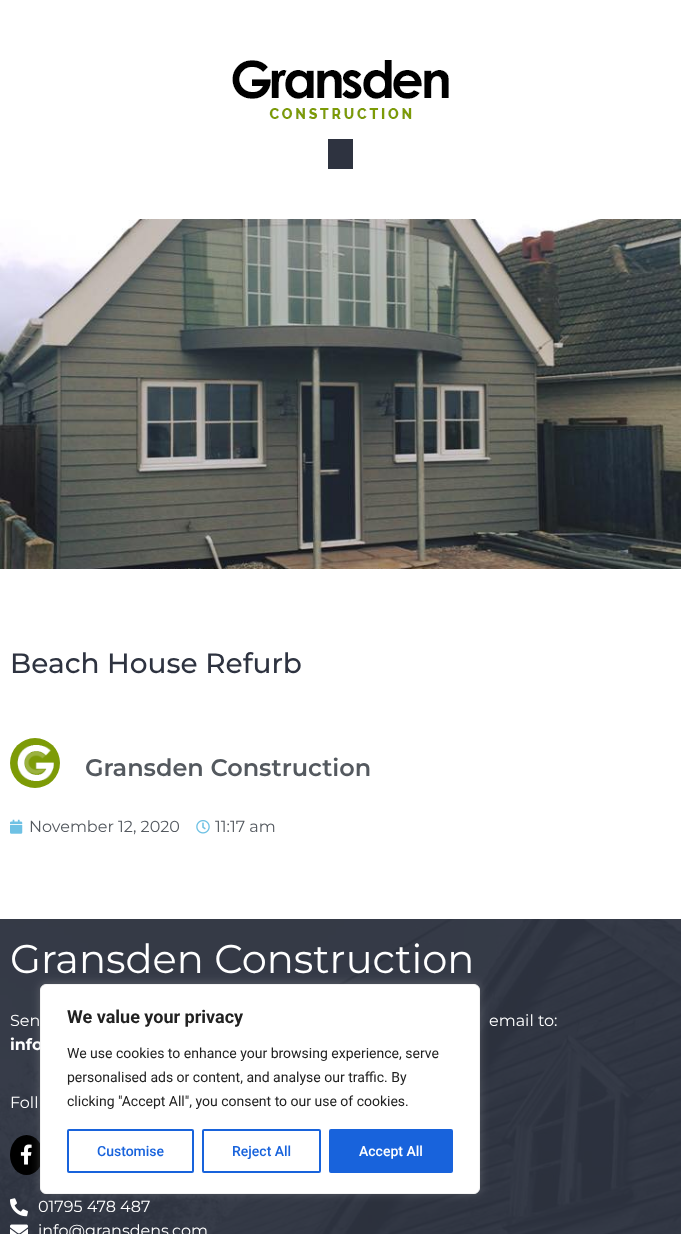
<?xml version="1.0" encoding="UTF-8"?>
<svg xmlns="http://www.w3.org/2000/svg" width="681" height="1234">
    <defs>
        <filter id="blur1" x="-50%" y="-200%" width="200%" height="500%"><feGaussianBlur stdDeviation="5"/></filter>
    </defs>
    <rect width="100%" height="100%" fill="#FFFFFF"/>
    <image x="232" y="60" width="217" height="59" href="img_01.png"/>
    <rect x="328" y="139" width="25" height="30" fill="#2E3340"/>
    <image x="0" y="219" width="681" height="350" href="img_02.png"/>
    <text x="10" y="673" font-family="Montserrat" font-size="28" font-weight="500" fill="#2E3340">Beach House Refurb</text>
    <image x="10" y="738" width="50" height="50" href="img_03.png"/>
    <text x="85" y="776" font-family="Montserrat" font-size="24" font-weight="600" fill="#54595F">Gransden Construction</text>
    <image x="10" y="819" width="13" height="15" href="img_04.png"/>
    <text x="29" y="832" font-family="Montserrat" font-size="16" fill="#54595F">November 12, 2020</text>
    <image x="196" y="820" width="14" height="14" href="img_05.png"/>
    <text x="215" y="832" font-family="Montserrat" font-size="16" fill="#54595F">11:17 am</text>
    <image x="0" y="919" width="681" height="315" href="img_06.png"/>
    <text x="10" y="973" font-family="Montserrat" font-size="40" fill="#FFFFFF">Gransden Construction</text>
    <text x="10" y="1026" font-family="Montserrat" font-size="16" fill="#FFFFFF">Sen</text>
    <text x="489" y="1026" font-family="Montserrat" font-size="16" fill="#FFFFFF">email to:</text>
    <text x="10" y="1050" font-family="Montserrat" font-size="16" font-weight="700" fill="#FFFFFF">info</text>
    <text x="10" y="1108" font-family="Montserrat" font-size="16" fill="#FFFFFF">Foll</text>
    <ellipse cx="26.5" cy="1155" rx="16.5" ry="20" fill="#000000"/>
    <image x="20" y="1144" width="12" height="21" href="img_07.png"/>
    <image x="10" y="1198" width="18" height="19" href="img_08.png"/>
    <text x="38" y="1212" font-family="Montserrat" font-size="16" fill="#FFFFFF">01795 478 487</text>
    <image x="10" y="1224" width="18" height="10" href="img_09.png"/>
    <text x="38" y="1236" font-family="Montserrat" font-size="16" fill="#FFFFFF">info@gransdens.com</text>
    <rect x="40" y="983" width="440" height="210" rx="6" fill="#ACABAB" fill-opacity="0.3" filter="url(#blur1)"/>
    <rect x="40.5" y="984.5" width="439" height="209" rx="5.5" fill="#FFFFFF" stroke="#F4F4F4"/>
    <text x="67" y="1023" font-family="Roboto" font-size="18" font-weight="700" fill="#212121">We value your privacy</text>
    <text font-family="Roboto" font-size="14" fill="#212121">
        <tspan x="67" y="1058">We use cookies to enhance your browsing experience, serve</tspan>
        <tspan x="67" y="1082">personalised ads or content, and analyse our traffic. By</tspan>
        <tspan x="67" y="1106">clicking "Accept All", you consent to our use of cookies.</tspan>
    </text>
    <rect x="68" y="1130" width="125" height="42" rx="1" fill="none" stroke="#1863DC" stroke-width="2"/>
    <text x="97" y="1156" font-family="Roboto" font-size="14" font-weight="500" fill="#1863DC">Customise</text>
    <rect x="203" y="1130" width="117" height="42" rx="1" fill="none" stroke="#1863DC" stroke-width="2"/>
    <text x="232" y="1156" font-family="Roboto" font-size="14" font-weight="500" fill="#1863DC">Reject All</text>
    <rect x="330" y="1130" width="122" height="42" rx="1" fill="#1863DC" stroke="#1863DC" stroke-width="2"/>
    <text x="359" y="1156" font-family="Roboto" font-size="14" font-weight="500" fill="#FFFFFF">Accept All</text>
</svg>
